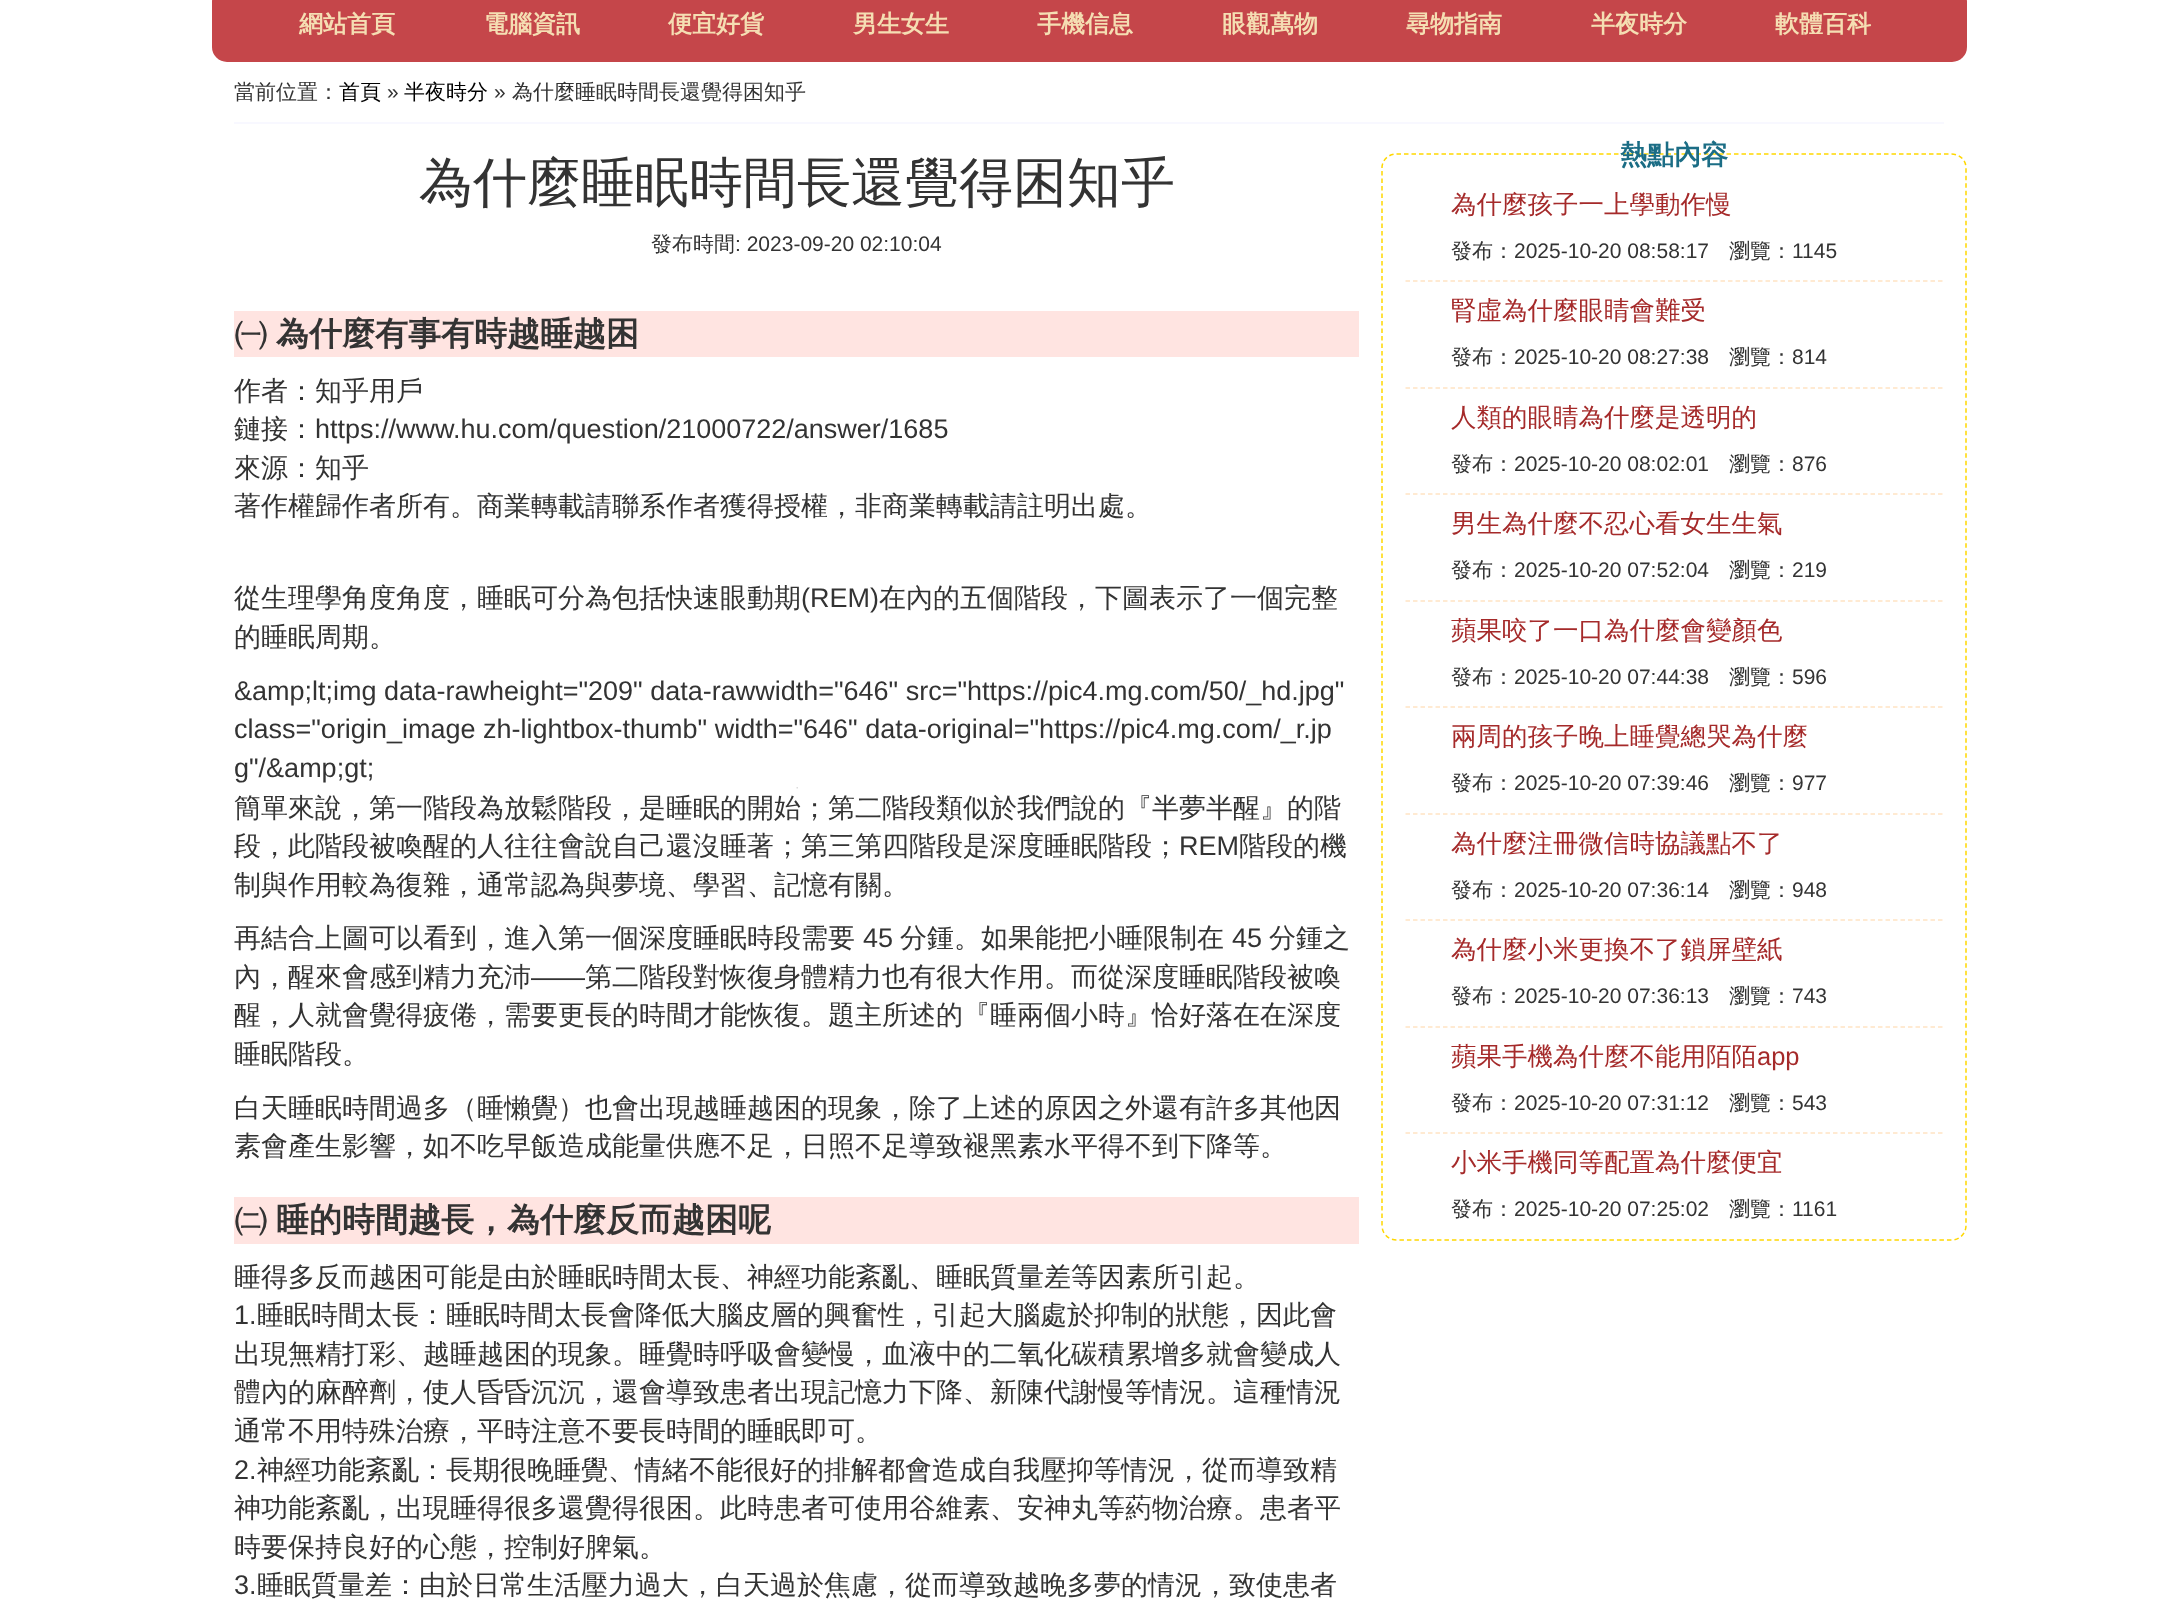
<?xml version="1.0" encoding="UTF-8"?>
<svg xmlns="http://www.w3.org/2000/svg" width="2178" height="1620">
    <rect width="100%" height="100%" fill="#FFFFFF"/>
    <rect x="212" y="-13" width="1755" height="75" rx="15" fill="#C5464A"/>
    <text x="299" y="32" font-family="WenQuanYi Zen Hei" font-size="24" font-weight="700" fill="#F5DEB3">網站首頁</text>
    <text x="484" y="32" font-family="WenQuanYi Zen Hei" font-size="24" font-weight="700" fill="#F5DEB3">電腦資訊</text>
    <text x="668" y="32" font-family="WenQuanYi Zen Hei" font-size="24" font-weight="700" fill="#F5DEB3">便宜好貨</text>
    <text x="853" y="32" font-family="WenQuanYi Zen Hei" font-size="24" font-weight="700" fill="#F5DEB3">男生女生</text>
    <text x="1037" y="32" font-family="WenQuanYi Zen Hei" font-size="24" font-weight="700" fill="#F5DEB3">手機信息</text>
    <text x="1222" y="32" font-family="WenQuanYi Zen Hei" font-size="24" font-weight="700" fill="#F5DEB3">眼觀萬物</text>
    <text x="1406" y="32" font-family="WenQuanYi Zen Hei" font-size="24" font-weight="700" fill="#F5DEB3">尋物指南</text>
    <text x="1591" y="32" font-family="WenQuanYi Zen Hei" font-size="24" font-weight="700" fill="#F5DEB3">半夜時分</text>
    <text x="1775" y="32" font-family="WenQuanYi Zen Hei" font-size="24" font-weight="700" fill="#F5DEB3">軟體百科</text>
    <rect x="234" y="122" width="1710" height="2" fill="#F8F8FF"/>
    <text x="234" y="99" font-family="WenQuanYi Zen Hei" font-size="21" font-weight="500" fill="#333333">當前位置：</text>
    <text x="339" y="99" font-family="WenQuanYi Zen Hei" font-size="21" font-weight="500" fill="#000000">首頁</text>
    <text x="387" y="99" font-family="Liberation Sans" font-size="21" fill="#333333">»</text>
    <text x="404" y="99" font-family="WenQuanYi Zen Hei" font-size="21" font-weight="500" fill="#000000">半夜時分</text>
    <text x="494" y="99" font-family="Liberation Sans" font-size="21" fill="#333333">»</text>
    <text x="512" y="99" font-family="WenQuanYi Zen Hei" font-size="21" font-weight="500" fill="#333333">為什麼睡眠時間長還覺得困知乎</text>
    <text x="419" y="201" font-family="WenQuanYi Zen Hei" font-size="54" font-weight="500" fill="#333333">為什麼睡眠時間長還覺得困知乎</text>
    <text x="651" y="251" font-family="WenQuanYi Zen Hei" font-size="21" font-weight="500" fill="#333333">發布時間</text>
    <text x="735" y="251" font-family="Liberation Sans" font-size="21" fill="#333333">: 2023-09-20 02:10:04</text>
    <rect x="234" y="311" width="1125" height="46" fill="#FFE4E1"/>
    <text x="234" y="345" word-spacing="-1" font-family="WenQuanYi Zen Hei" font-size="33" font-weight="700" fill="#333333">㈠ 為什麼有事有時越睡越困</text>
    <text font-family="WenQuanYi Zen Hei" font-size="27" font-weight="500" fill="#333333">
        <tspan x="234" y="400">作者：知乎用戶</tspan>
        <tspan x="234" y="438">鏈接：</tspan>
    </text>
    <text x="315" y="438" font-family="Liberation Sans" font-size="27" fill="#333333">https://www.hu.com/question/21000722/answer/1685</text>
    <text font-family="WenQuanYi Zen Hei" font-size="27" font-weight="500" fill="#333333">
        <tspan x="234" y="477">來源：知乎</tspan>
        <tspan x="234" y="515">著作權歸作者所有。商業轉載請聯系作者獲得授權，非商業轉載請註明出處。</tspan>
    </text>
    <text x="234" y="607" font-family="WenQuanYi Zen Hei" font-size="27" font-weight="500" fill="#333333">從生理學角度角度，睡眠可分為包括快速眼動期</text>
    <text x="801" y="607" font-family="Liberation Sans" font-size="27" fill="#333333">(REM)</text>
    <text x="879" y="607" font-family="WenQuanYi Zen Hei" font-size="27" font-weight="500" fill="#333333">在內的五個階段，下圖表示了一個完整</text>
    <text x="234" y="646" font-family="WenQuanYi Zen Hei" font-size="27" font-weight="500" fill="#333333">的睡眠周期。</text>
    <text font-family="Liberation Sans" font-size="27" fill="#333333">
        <tspan x="234" y="700">&amp;amp;lt;img data-rawheight="209" data-rawwidth="646" src="https://pic4.mg.com/50/_hd.jpg"</tspan>
        <tspan x="234" y="738">class="origin_image zh-lightbox-thumb" width="646" data-original="https://pic4.mg.com/_r.jp</tspan>
        <tspan x="234" y="777">g"/&amp;amp;gt;</tspan>
    </text>
    <image x="796" y="787" width="2" height="2" href="img_01.png"/>
    <text font-family="WenQuanYi Zen Hei" font-size="27" font-weight="500" fill="#333333">
        <tspan x="234" y="817">簡單來說，第一階段為放鬆階段，是睡眠的開始；第二階段類似於我們說的『半夢半醒』的階</tspan>
        <tspan x="234" y="855">段，此階段被喚醒的人往往會說自己還沒睡著；第三第四階段是深度睡眠階段；</tspan>
    </text>
    <text x="1179" y="855" font-family="Liberation Sans" font-size="27" fill="#333333">REM</text>
    <text x="1239" y="855" font-family="WenQuanYi Zen Hei" font-size="27" font-weight="500" fill="#333333">階段的機</text>
    <text font-family="WenQuanYi Zen Hei" font-size="27" font-weight="500" fill="#333333">
        <tspan x="234" y="894">制與作用較為復雜，通常認為與夢境、學習、記憶有關。</tspan>
        <tspan x="234" y="947">再結合上圖可以看到，進入第一個深度睡眠時段需要</tspan>
    </text>
    <text x="863" y="947" font-family="Liberation Sans" font-size="27" fill="#333333">45</text>
    <text x="900" y="947" font-family="WenQuanYi Zen Hei" font-size="27" font-weight="500" fill="#333333">分鍾。如果能把小睡限制在</text>
    <text x="1232" y="947" font-family="Liberation Sans" font-size="27" fill="#333333">45</text>
    <text x="1269" y="947" font-family="WenQuanYi Zen Hei" font-size="27" font-weight="500" fill="#333333">分鍾之</text>
    <text x="234" y="986" font-family="WenQuanYi Zen Hei" font-size="27" font-weight="500" fill="#333333">內，醒來會感到精力充沛</text>
    <text x="531" y="986" font-family="Liberation Sans" font-size="27" fill="#333333">——</text>
    <text x="585" y="986" font-family="WenQuanYi Zen Hei" font-size="27" font-weight="500" fill="#333333">第二階段對恢復身體精力也有很大作用。而從深度睡眠階段被喚</text>
    <text font-family="WenQuanYi Zen Hei" font-size="27" font-weight="500" fill="#333333">
        <tspan x="234" y="1024">醒，人就會覺得疲倦，需要更長的時間才能恢復。題主所述的『睡兩個小時』恰好落在在深度</tspan>
        <tspan x="234" y="1063">睡眠階段。</tspan>
    </text>
    <text font-family="WenQuanYi Zen Hei" font-size="27" font-weight="500" fill="#333333">
        <tspan x="234" y="1117">白天睡眠時間過多（睡懶覺）也會出現越睡越困的現象，除了上述的原因之外還有許多其他因</tspan>
        <tspan x="234" y="1155">素會產生影響，如不吃早飯造成能量供應不足，日照不足導致褪黑素水平得不到下降等。</tspan>
    </text>
    <rect x="234" y="1197" width="1125" height="47" fill="#FFE4E1"/>
    <text x="234" y="1231" word-spacing="-1" font-family="WenQuanYi Zen Hei" font-size="33" font-weight="700" fill="#333333">㈡ 睡的時間越長，為什麼反而越困呢</text>
    <text x="234" y="1286" font-family="WenQuanYi Zen Hei" font-size="27" font-weight="500" fill="#333333">睡得多反而越困可能是由於睡眠時間太長、神經功能紊亂、睡眠質量差等因素所引起。</text>
    <text x="234" y="1324" font-family="Liberation Sans" font-size="27" fill="#333333">1.</text>
    <text x="257" y="1324" font-family="WenQuanYi Zen Hei" font-size="27" font-weight="500" fill="#333333">睡眠時間太長：睡眠時間太長會降低大腦皮層的興奮性，引起大腦處於抑制的狀態，因此會</text>
    <text font-family="WenQuanYi Zen Hei" font-size="27" font-weight="500" fill="#333333">
        <tspan x="234" y="1363">出現無精打彩、越睡越困的現象。睡覺時呼吸會變慢，血液中的二氧化碳積累增多就會變成人</tspan>
        <tspan x="234" y="1401">體內的麻醉劑，使人昏昏沉沉，還會導致患者出現記憶力下降、新陳代謝慢等情況。這種情況</tspan>
        <tspan x="234" y="1440">通常不用特殊治療，平時注意不要長時間的睡眠即可。</tspan>
    </text>
    <text x="234" y="1479" font-family="Liberation Sans" font-size="27" fill="#333333">2.</text>
    <text x="257" y="1479" font-family="WenQuanYi Zen Hei" font-size="27" font-weight="500" fill="#333333">神經功能紊亂：長期很晚睡覺、情緒不能很好的排解都會造成自我壓抑等情況，從而導致精</text>
    <text font-family="WenQuanYi Zen Hei" font-size="27" font-weight="500" fill="#333333">
        <tspan x="234" y="1517">神功能紊亂，出現睡得很多還覺得很困。此時患者可使用谷維素、安神丸等葯物治療。患者平</tspan>
        <tspan x="234" y="1556">時要保持良好的心態，控制好脾氣。</tspan>
    </text>
    <text x="234" y="1594" font-family="Liberation Sans" font-size="27" fill="#333333">3.</text>
    <text x="257" y="1594" font-family="WenQuanYi Zen Hei" font-size="27" font-weight="500" fill="#333333">睡眠質量差：由於日常生活壓力過大，白天過於焦慮，從而導致越晚多夢的情況，致使患者</text>
    <path d="M 1396.5 154 H 1951.5 C 1959.5 154 1966 160 1966 168 V 1225.5 C 1966 1233.5 1959.5 1240 1951.5 1240 H 1396.5 C 1388.5 1240 1382 1233.5 1382 1225.5 V 168 C 1382 160 1388.5 154 1396.5 154 Z" fill="none" stroke="#FFD700" stroke-width="1.5" stroke-dasharray="4.5 3"/>
    <text x="1620" y="164" font-family="WenQuanYi Zen Hei" font-size="27" font-weight="700" fill="#1B6D85">熱點內容</text>
    <path d="M 1405.5 281 H 1942.5" fill="none" stroke="#FFE4C4" stroke-width="1.5" stroke-dasharray="4.5 3"/>
    <text x="1451" y="213" font-family="WenQuanYi Zen Hei" font-size="25.5" font-weight="500" fill="#A52A2A">為什麼孩子一上學動作慢</text>
    <text x="1451" y="258" font-family="WenQuanYi Zen Hei" font-size="21" font-weight="500" fill="#333333">發布：</text>
    <text x="1514" y="258" font-family="Liberation Sans" font-size="21" fill="#333333">2025-10-20 08:58:17</text>
    <text x="1729" y="258" font-family="WenQuanYi Zen Hei" font-size="21" font-weight="500" fill="#333333">瀏覽：</text>
    <text x="1792" y="258" font-family="Liberation Sans" font-size="21" fill="#333333">1145</text>
    <path d="M 1405.5 388 H 1942.5" fill="none" stroke="#FFE4C4" stroke-width="1.5" stroke-dasharray="4.5 3"/>
    <text x="1451" y="319" font-family="WenQuanYi Zen Hei" font-size="25.5" font-weight="500" fill="#A52A2A">腎虛為什麼眼睛會難受</text>
    <text x="1451" y="364" font-family="WenQuanYi Zen Hei" font-size="21" font-weight="500" fill="#333333">發布：</text>
    <text x="1514" y="364" font-family="Liberation Sans" font-size="21" fill="#333333">2025-10-20 08:27:38</text>
    <text x="1729" y="364" font-family="WenQuanYi Zen Hei" font-size="21" font-weight="500" fill="#333333">瀏覽：</text>
    <text x="1792" y="364" font-family="Liberation Sans" font-size="21" fill="#333333">814</text>
    <path d="M 1405.5 494 H 1942.5" fill="none" stroke="#FFE4C4" stroke-width="1.5" stroke-dasharray="4.5 3"/>
    <text x="1451" y="426" font-family="WenQuanYi Zen Hei" font-size="25.5" font-weight="500" fill="#A52A2A">人類的眼睛為什麼是透明的</text>
    <text x="1451" y="471" font-family="WenQuanYi Zen Hei" font-size="21" font-weight="500" fill="#333333">發布：</text>
    <text x="1514" y="471" font-family="Liberation Sans" font-size="21" fill="#333333">2025-10-20 08:02:01</text>
    <text x="1729" y="471" font-family="WenQuanYi Zen Hei" font-size="21" font-weight="500" fill="#333333">瀏覽：</text>
    <text x="1792" y="471" font-family="Liberation Sans" font-size="21" fill="#333333">876</text>
    <path d="M 1405.5 601 H 1942.5" fill="none" stroke="#FFE4C4" stroke-width="1.5" stroke-dasharray="4.5 3"/>
    <text x="1451" y="532" font-family="WenQuanYi Zen Hei" font-size="25.5" font-weight="500" fill="#A52A2A">男生為什麼不忍心看女生生氣</text>
    <text x="1451" y="577" font-family="WenQuanYi Zen Hei" font-size="21" font-weight="500" fill="#333333">發布：</text>
    <text x="1514" y="577" font-family="Liberation Sans" font-size="21" fill="#333333">2025-10-20 07:52:04</text>
    <text x="1729" y="577" font-family="WenQuanYi Zen Hei" font-size="21" font-weight="500" fill="#333333">瀏覽：</text>
    <text x="1792" y="577" font-family="Liberation Sans" font-size="21" fill="#333333">219</text>
    <path d="M 1405.5 707 H 1942.5" fill="none" stroke="#FFE4C4" stroke-width="1.5" stroke-dasharray="4.5 3"/>
    <text x="1451" y="639" font-family="WenQuanYi Zen Hei" font-size="25.5" font-weight="500" fill="#A52A2A">蘋果咬了一口為什麼會變顏色</text>
    <text x="1451" y="684" font-family="WenQuanYi Zen Hei" font-size="21" font-weight="500" fill="#333333">發布：</text>
    <text x="1514" y="684" font-family="Liberation Sans" font-size="21" fill="#333333">2025-10-20 07:44:38</text>
    <text x="1729" y="684" font-family="WenQuanYi Zen Hei" font-size="21" font-weight="500" fill="#333333">瀏覽：</text>
    <text x="1792" y="684" font-family="Liberation Sans" font-size="21" fill="#333333">596</text>
    <path d="M 1405.5 814 H 1942.5" fill="none" stroke="#FFE4C4" stroke-width="1.5" stroke-dasharray="4.5 3"/>
    <text x="1451" y="745" font-family="WenQuanYi Zen Hei" font-size="25.5" font-weight="500" fill="#A52A2A">兩周的孩子晚上睡覺總哭為什麼</text>
    <text x="1451" y="790" font-family="WenQuanYi Zen Hei" font-size="21" font-weight="500" fill="#333333">發布：</text>
    <text x="1514" y="790" font-family="Liberation Sans" font-size="21" fill="#333333">2025-10-20 07:39:46</text>
    <text x="1729" y="790" font-family="WenQuanYi Zen Hei" font-size="21" font-weight="500" fill="#333333">瀏覽：</text>
    <text x="1792" y="790" font-family="Liberation Sans" font-size="21" fill="#333333">977</text>
    <path d="M 1405.5 920 H 1942.5" fill="none" stroke="#FFE4C4" stroke-width="1.5" stroke-dasharray="4.5 3"/>
    <text x="1451" y="852" font-family="WenQuanYi Zen Hei" font-size="25.5" font-weight="500" fill="#A52A2A">為什麼注冊微信時協議點不了</text>
    <text x="1451" y="897" font-family="WenQuanYi Zen Hei" font-size="21" font-weight="500" fill="#333333">發布：</text>
    <text x="1514" y="897" font-family="Liberation Sans" font-size="21" fill="#333333">2025-10-20 07:36:14</text>
    <text x="1729" y="897" font-family="WenQuanYi Zen Hei" font-size="21" font-weight="500" fill="#333333">瀏覽：</text>
    <text x="1792" y="897" font-family="Liberation Sans" font-size="21" fill="#333333">948</text>
    <path d="M 1405.5 1027 H 1942.5" fill="none" stroke="#FFE4C4" stroke-width="1.5" stroke-dasharray="4.5 3"/>
    <text x="1451" y="958" font-family="WenQuanYi Zen Hei" font-size="25.5" font-weight="500" fill="#A52A2A">為什麼小米更換不了鎖屏壁紙</text>
    <text x="1451" y="1003" font-family="WenQuanYi Zen Hei" font-size="21" font-weight="500" fill="#333333">發布：</text>
    <text x="1514" y="1003" font-family="Liberation Sans" font-size="21" fill="#333333">2025-10-20 07:36:13</text>
    <text x="1729" y="1003" font-family="WenQuanYi Zen Hei" font-size="21" font-weight="500" fill="#333333">瀏覽：</text>
    <text x="1792" y="1003" font-family="Liberation Sans" font-size="21" fill="#333333">743</text>
    <path d="M 1405.5 1133 H 1942.5" fill="none" stroke="#FFE4C4" stroke-width="1.5" stroke-dasharray="4.5 3"/>
    <text x="1451" y="1065" font-family="WenQuanYi Zen Hei" font-size="25.5" font-weight="500" fill="#A52A2A">蘋果手機為什麼不能用陌陌</text>
    <text x="1757" y="1065" font-family="Liberation Sans" font-size="25.5" fill="#A52A2A">app</text>
    <text x="1451" y="1110" font-family="WenQuanYi Zen Hei" font-size="21" font-weight="500" fill="#333333">發布：</text>
    <text x="1514" y="1110" font-family="Liberation Sans" font-size="21" fill="#333333">2025-10-20 07:31:12</text>
    <text x="1729" y="1110" font-family="WenQuanYi Zen Hei" font-size="21" font-weight="500" fill="#333333">瀏覽：</text>
    <text x="1792" y="1110" font-family="Liberation Sans" font-size="21" fill="#333333">543</text>
    <text x="1451" y="1171" font-family="WenQuanYi Zen Hei" font-size="25.5" font-weight="500" fill="#A52A2A">小米手機同等配置為什麼便宜</text>
    <text x="1451" y="1216" font-family="WenQuanYi Zen Hei" font-size="21" font-weight="500" fill="#333333">發布：</text>
    <text x="1514" y="1216" font-family="Liberation Sans" font-size="21" fill="#333333">2025-10-20 07:25:02</text>
    <text x="1729" y="1216" font-family="WenQuanYi Zen Hei" font-size="21" font-weight="500" fill="#333333">瀏覽：</text>
    <text x="1792" y="1216" font-family="Liberation Sans" font-size="21" fill="#333333">1161</text>
</svg>
